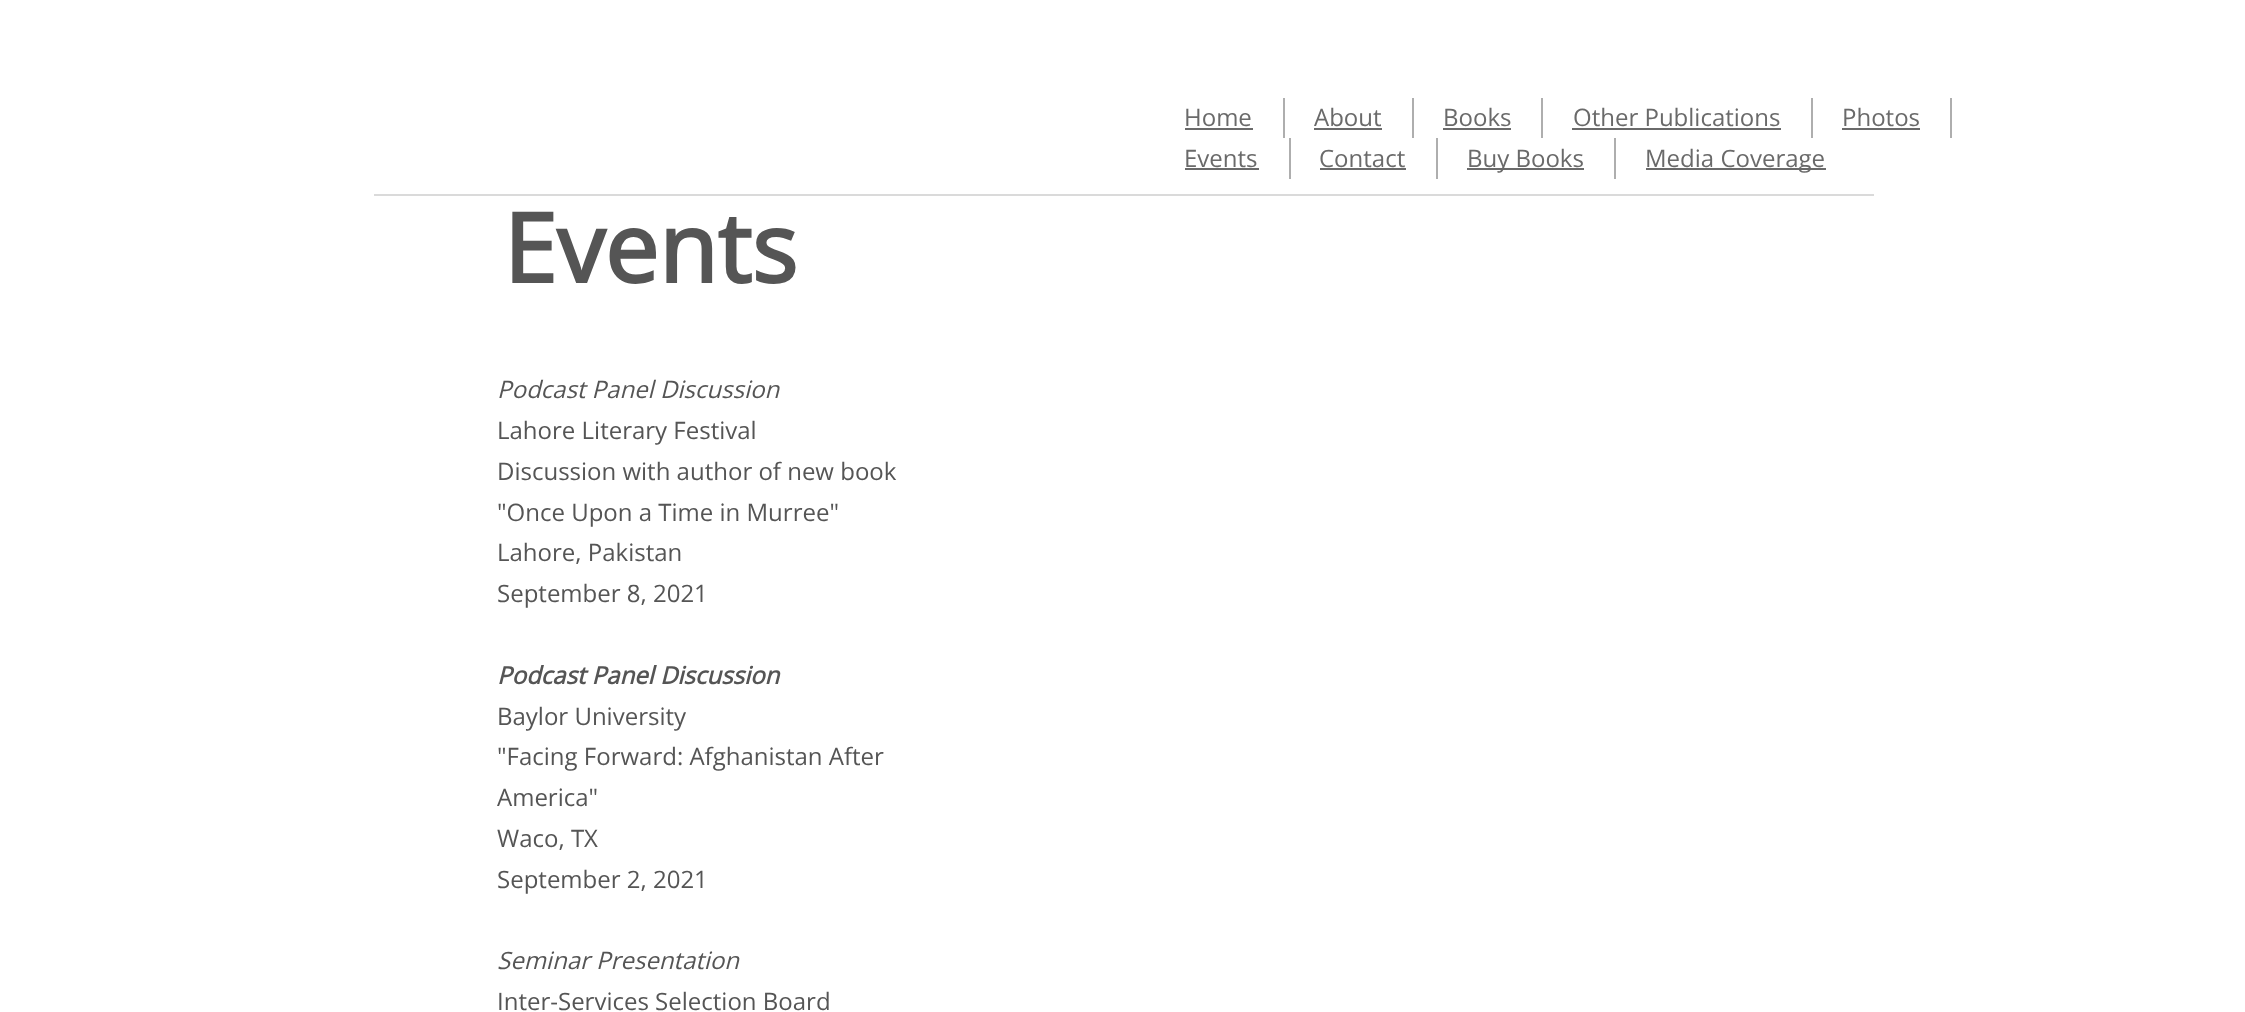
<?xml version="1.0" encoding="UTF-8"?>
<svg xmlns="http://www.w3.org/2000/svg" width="2245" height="1012">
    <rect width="100%" height="100%" fill="#FFFFFF"/>
    <rect x="1283" y="98" width="2" height="40" fill="#AEAEAE"/>
    <text x="1184" y="126" font-family="Open Sans" font-size="24" fill="#6A6A6A">Home</text>
    <rect x="1185" y="128" width="68" height="2" fill="#6A6A6A"/>
    <rect x="1412" y="98" width="2" height="40" fill="#AEAEAE"/>
    <text x="1314" y="126" font-family="Open Sans" font-size="24" fill="#6A6A6A">About</text>
    <rect x="1314" y="128" width="68" height="2" fill="#6A6A6A"/>
    <rect x="1541" y="98" width="2" height="40" fill="#AEAEAE"/>
    <text x="1443" y="126" font-family="Open Sans" font-size="24" fill="#6A6A6A">Books</text>
    <rect x="1443" y="128" width="68" height="2" fill="#6A6A6A"/>
    <rect x="1811" y="98" width="2" height="40" fill="#AEAEAE"/>
    <text x="1573" y="126" font-family="Open Sans" font-size="24" fill="#6A6A6A">Other Publications</text>
    <rect x="1572" y="128" width="209" height="2" fill="#6A6A6A"/>
    <rect x="1950" y="98" width="2" height="40" fill="#AEAEAE"/>
    <text x="1842" y="126" font-family="Open Sans" font-size="24" fill="#6A6A6A">Photos</text>
    <rect x="1842" y="128" width="78" height="2" fill="#6A6A6A"/>
    <rect x="1289" y="138" width="2" height="41" fill="#AEAEAE"/>
    <text x="1184" y="167" font-family="Open Sans" font-size="24" fill="#6A6A6A">Events</text>
    <rect x="1185" y="168" width="74" height="2" fill="#6A6A6A"/>
    <rect x="1436" y="138" width="2" height="41" fill="#AEAEAE"/>
    <text x="1319" y="167" font-family="Open Sans" font-size="24" fill="#6A6A6A">Contact</text>
    <rect x="1320" y="168" width="86" height="2" fill="#6A6A6A"/>
    <rect x="1614" y="138" width="2" height="41" fill="#AEAEAE"/>
    <rect x="1467" y="168" width="117" height="2" fill="#6A6A6A"/>
    <text x="1467" y="167" font-family="Open Sans" font-size="24" fill="#6A6A6A">Buy Books</text>
    <rect x="1646" y="168" width="180" height="2" fill="#6A6A6A"/>
    <text x="1645" y="167" font-family="Open Sans" font-size="24" fill="#6A6A6A">Media Coverage</text>
    <rect x="374" y="194" width="1500" height="2" fill="#DADADA"/>
    <text x="503" y="283" font-family="Open Sans" font-size="96" font-weight="700" fill="#555555">Events</text>
    <text x="497" y="398" font-family="Open Sans" font-size="24" font-style="italic" fill="#555555">Podcast Panel Discussion</text>
    <text font-family="Open Sans" font-size="24" fill="#555555">
        <tspan x="497" y="439">Lahore Literary Festival</tspan>
        <tspan x="497" y="480">Discussion with author of new book</tspan>
        <tspan x="497" y="521">"Once Upon a Time in Murree"</tspan>
        <tspan x="497" y="561">Lahore, Pakistan</tspan>
        <tspan x="497" y="602">September 8, 2021</tspan>
    </text>
    <text x="497" y="684" font-family="Open Sans" font-size="24" font-weight="700" font-style="italic" fill="#555555">Podcast Panel Discussion</text>
    <text font-family="Open Sans" font-size="24" fill="#555555">
        <tspan x="497" y="725">Baylor University</tspan>
        <tspan x="497" y="765">"Facing Forward: Afghanistan After</tspan>
        <tspan x="497" y="806">America"</tspan>
        <tspan x="497" y="847">Waco, TX</tspan>
        <tspan x="497" y="888">September 2, 2021</tspan>
    </text>
    <text x="497" y="969" font-family="Open Sans" font-size="24" font-style="italic" fill="#555555">Seminar Presentation</text>
    <text x="497" y="1010" font-family="Open Sans" font-size="24" fill="#555555">Inter-Services Selection Board</text>
</svg>
